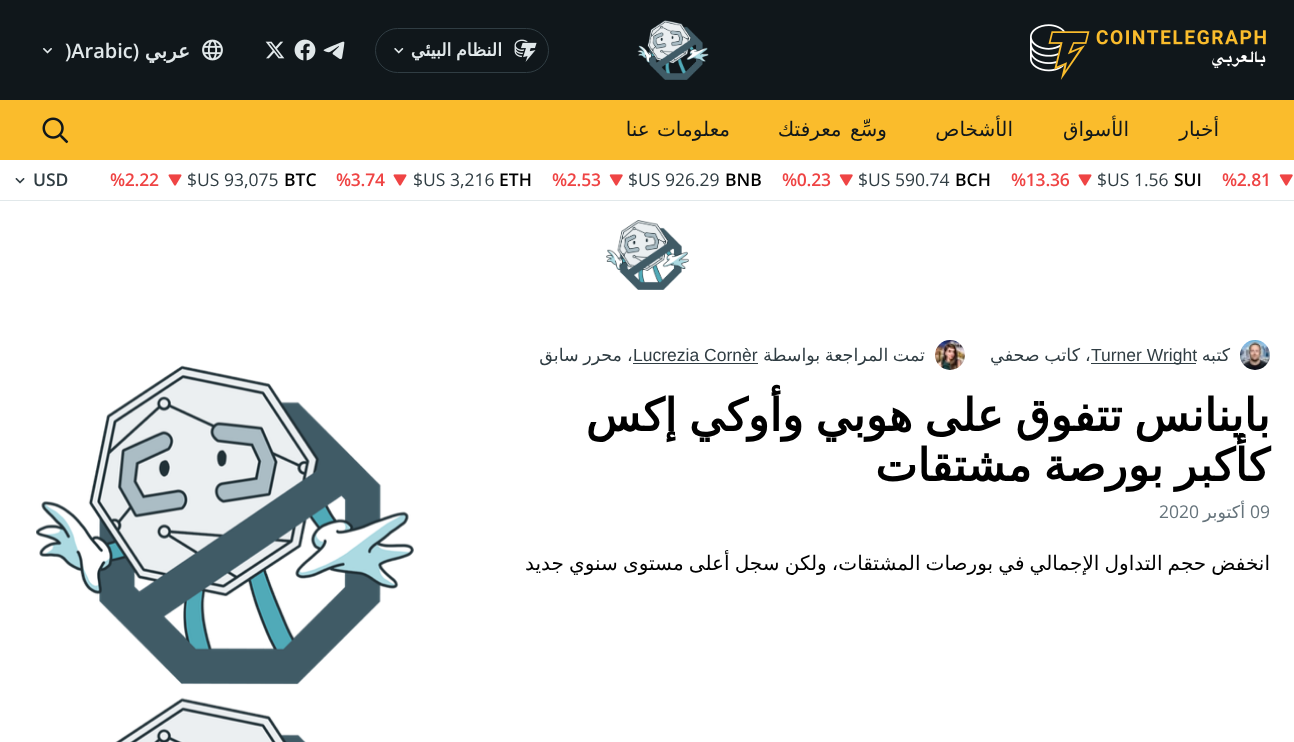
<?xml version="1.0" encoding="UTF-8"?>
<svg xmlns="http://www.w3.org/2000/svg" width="1294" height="742">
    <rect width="100%" height="100%" fill="#FFFFFF"/>
    <rect x="0" y="0" width="1294" height="100" fill="#10171B"/>
    <image x="1030" y="24" width="236" height="56" href="img_01.png"/>
    <image x="637" y="20" width="72" height="60" href="img_02.png"/>
    <rect x="375.5" y="28.5" width="173" height="44" rx="22" fill="none" stroke="#303D43"/>
    <image x="514" y="39" width="23" height="23" href="img_03.png"/>
    <text x="502" y="56" word-spacing="-1" font-family="DejaVu Sans" font-size="17.5" font-weight="700" direction="rtl" fill="#E1E8EA">النظام البيئي</text>
    <image x="394" y="48" width="10" height="6" href="img_04.png"/>
    <image x="323" y="41" width="22" height="19" href="img_05.png"/>
    <image x="294" y="39" width="22" height="22" href="img_06.png"/>
    <image x="265" y="41" width="20" height="18" href="img_07.png"/>
    <image x="202" y="39" width="21" height="22" href="img_08.png"/>
    <text x="190" y="58" font-family="DejaVu Sans" font-size="20" font-weight="700" direction="rtl" fill="#E1E8EA">عربي</text>
    <text x="139" y="58" font-family="Open Sans" font-size="20" font-weight="600" direction="rtl" fill="#E1E8EA">(</text>
    <text x="65" y="58" font-family="Open Sans" font-size="20" font-weight="600" fill="#E1E8EA">)Arabic</text>
    <image x="43" y="48" width="9" height="6" href="img_09.png"/>
    <rect x="0" y="100" width="1294" height="60" fill="#FABC2C"/>
    <text x="1219" y="136" font-family="DejaVu Sans" font-size="20" letter-spacing="-0.25" direction="rtl" fill="#10171B">أخبار</text>
    <text x="1129" y="136" font-family="DejaVu Sans" font-size="20" letter-spacing="-0.25" direction="rtl" fill="#10171B">الأسواق</text>
    <text x="1013" y="136" font-family="DejaVu Sans" font-size="20" letter-spacing="-0.25" direction="rtl" fill="#10171B">الأشخاص</text>
    <text x="887" y="136" word-spacing="2" font-family="DejaVu Sans" font-size="20" letter-spacing="-0.25" direction="rtl" fill="#10171B">وسِّع معرفتك</text>
    <text x="730" y="136" word-spacing="1" font-family="DejaVu Sans" font-size="20" letter-spacing="-0.25" direction="rtl" fill="#10171B">معلومات عنا</text>
    <image x="42" y="117" width="27" height="27" href="img_10.png"/>
    <rect x="0" y="200" width="1294" height="1" fill="#E1E8EA"/>
    <image x="1279" y="174" width="14" height="12" href="img_11.png"/>
    <text x="1222" y="186" font-family="Open Sans" font-size="17.5" font-weight="600" letter-spacing="-0.25" fill="#EF4444">%2.81</text>
    <text x="1174" y="186" font-family="Open Sans" font-size="17.5" font-weight="600" fill="#000000">SUI</text>
    <text x="1097" y="186" font-family="Open Sans" font-size="17.5" fill="#303D43">$US 1.56</text>
    <image x="1078" y="174" width="14" height="12" href="img_12.png"/>
    <text x="1011" y="186" font-family="Open Sans" font-size="17.5" font-weight="600" letter-spacing="-0.25" fill="#EF4444">%13.36</text>
    <text x="955" y="186" font-family="Open Sans" font-size="17.5" font-weight="600" fill="#000000">BCH</text>
    <text x="858" y="186" font-family="Open Sans" font-size="17.5" fill="#303D43">$US 590.74</text>
    <image x="839" y="174" width="14" height="12" href="img_11.png"/>
    <text x="782" y="186" font-family="Open Sans" font-size="17.5" font-weight="600" letter-spacing="-0.25" fill="#EF4444">%0.23</text>
    <text x="725" y="186" font-family="Open Sans" font-size="17.5" font-weight="600" fill="#000000">BNB</text>
    <text x="628" y="186" font-family="Open Sans" font-size="17.5" fill="#303D43">$US 926.29</text>
    <image x="609" y="174" width="14" height="12" href="img_11.png"/>
    <text x="552" y="186" font-family="Open Sans" font-size="17.5" font-weight="600" letter-spacing="-0.25" fill="#EF4444">%2.53</text>
    <text x="499" y="186" font-family="Open Sans" font-size="17.5" font-weight="600" fill="#000000">ETH</text>
    <text x="413" y="186" font-family="Open Sans" font-size="17.5" fill="#303D43">$US 3,216</text>
    <image x="393" y="174" width="14" height="12" href="img_12.png"/>
    <text x="336" y="186" font-family="Open Sans" font-size="17.5" font-weight="600" letter-spacing="-0.25" fill="#EF4444">%3.74</text>
    <text x="284" y="186" font-family="Open Sans" font-size="17.5" font-weight="600" fill="#000000">BTC</text>
    <text x="187" y="186" font-family="Open Sans" font-size="17.5" fill="#303D43">$US 93,075</text>
    <image x="168" y="174" width="14" height="12" href="img_12.png"/>
    <text x="110" y="186" font-family="Open Sans" font-size="17.5" font-weight="600" letter-spacing="-0.25" fill="#EF4444">%2.22</text>
    <text x="33" y="186" font-family="Open Sans" font-size="17.5" font-weight="600" fill="#303D43">USD</text>
    <image x="15" y="178" width="10" height="6" href="img_13.png"/>
    <image x="606" y="220" width="83" height="70" href="img_14.png"/>
    <image x="1240" y="340" width="30" height="30" href="img_15.png"/>
    <text x="1230" y="361" font-family="DejaVu Sans" font-size="17.5" direction="rtl" fill="#303D43">كتبه</text>
    <rect x="1091" y="363" width="105" height="1" fill="#303D43"/>
    <text x="1091" y="361" font-family="Liberation Sans" font-size="17.5" fill="#303D43">Turner Wright</text>
    <text x="1085" y="361" font-family="DejaVu Sans" font-size="17.5" fill="#303D43">،</text>
    <text x="1080" y="361" word-spacing="-1" font-family="DejaVu Sans" font-size="17.5" direction="rtl" fill="#303D43">كاتب صحفي</text>
    <image x="935" y="340" width="30" height="30" href="img_16.png"/>
    <text x="925" y="361" word-spacing="-1" font-family="DejaVu Sans" font-size="17.5" direction="rtl" fill="#303D43">تمت المراجعة بواسطة</text>
    <text x="633" y="361" font-family="Liberation Sans" font-size="17.5" fill="#303D43">Lucrezia Cornèr</text>
    <text x="627" y="361" font-family="DejaVu Sans" font-size="17.5" fill="#303D43">،</text>
    <rect x="633" y="363" width="125" height="1" fill="#303D43"/>
    <text x="622" y="361" word-spacing="-1" font-family="DejaVu Sans" font-size="17.5" direction="rtl" fill="#303D43">محرر سابق</text>
    <text font-family="DejaVu Sans" font-size="45" font-weight="700" direction="rtl" fill="#000000">
        <tspan x="1270" y="431" word-spacing="-2.5">باينانس تتفوق على هوبي وأوكي إكس</tspan>
        <tspan x="1270" y="481" word-spacing="-2.5">كأكبر بورصة مشتقات</tspan>
    </text>
    <text x="1250" y="518" font-family="Open Sans" font-size="17.5" fill="#66747C">09</text>
    <text x="1245" y="518" font-family="DejaVu Sans" font-size="17.5" direction="rtl" fill="#66747C">أكتوبر</text>
    <text x="1159" y="518" font-family="Open Sans" font-size="17.5" fill="#66747C">2020</text>
    <text x="1270" y="570" word-spacing="-1.2" font-family="DejaVu Sans" font-size="20" direction="rtl" fill="#000000">انخفض حجم التداول الإجمالي في بورصات المشتقات، ولكن سجل أعلى مستوى سنوي جديد</text>
    <image x="36" y="365" width="378" height="320" href="img_17.png"/>
    <image x="115" y="697" width="191" height="45" href="img_18.png"/>
</svg>
